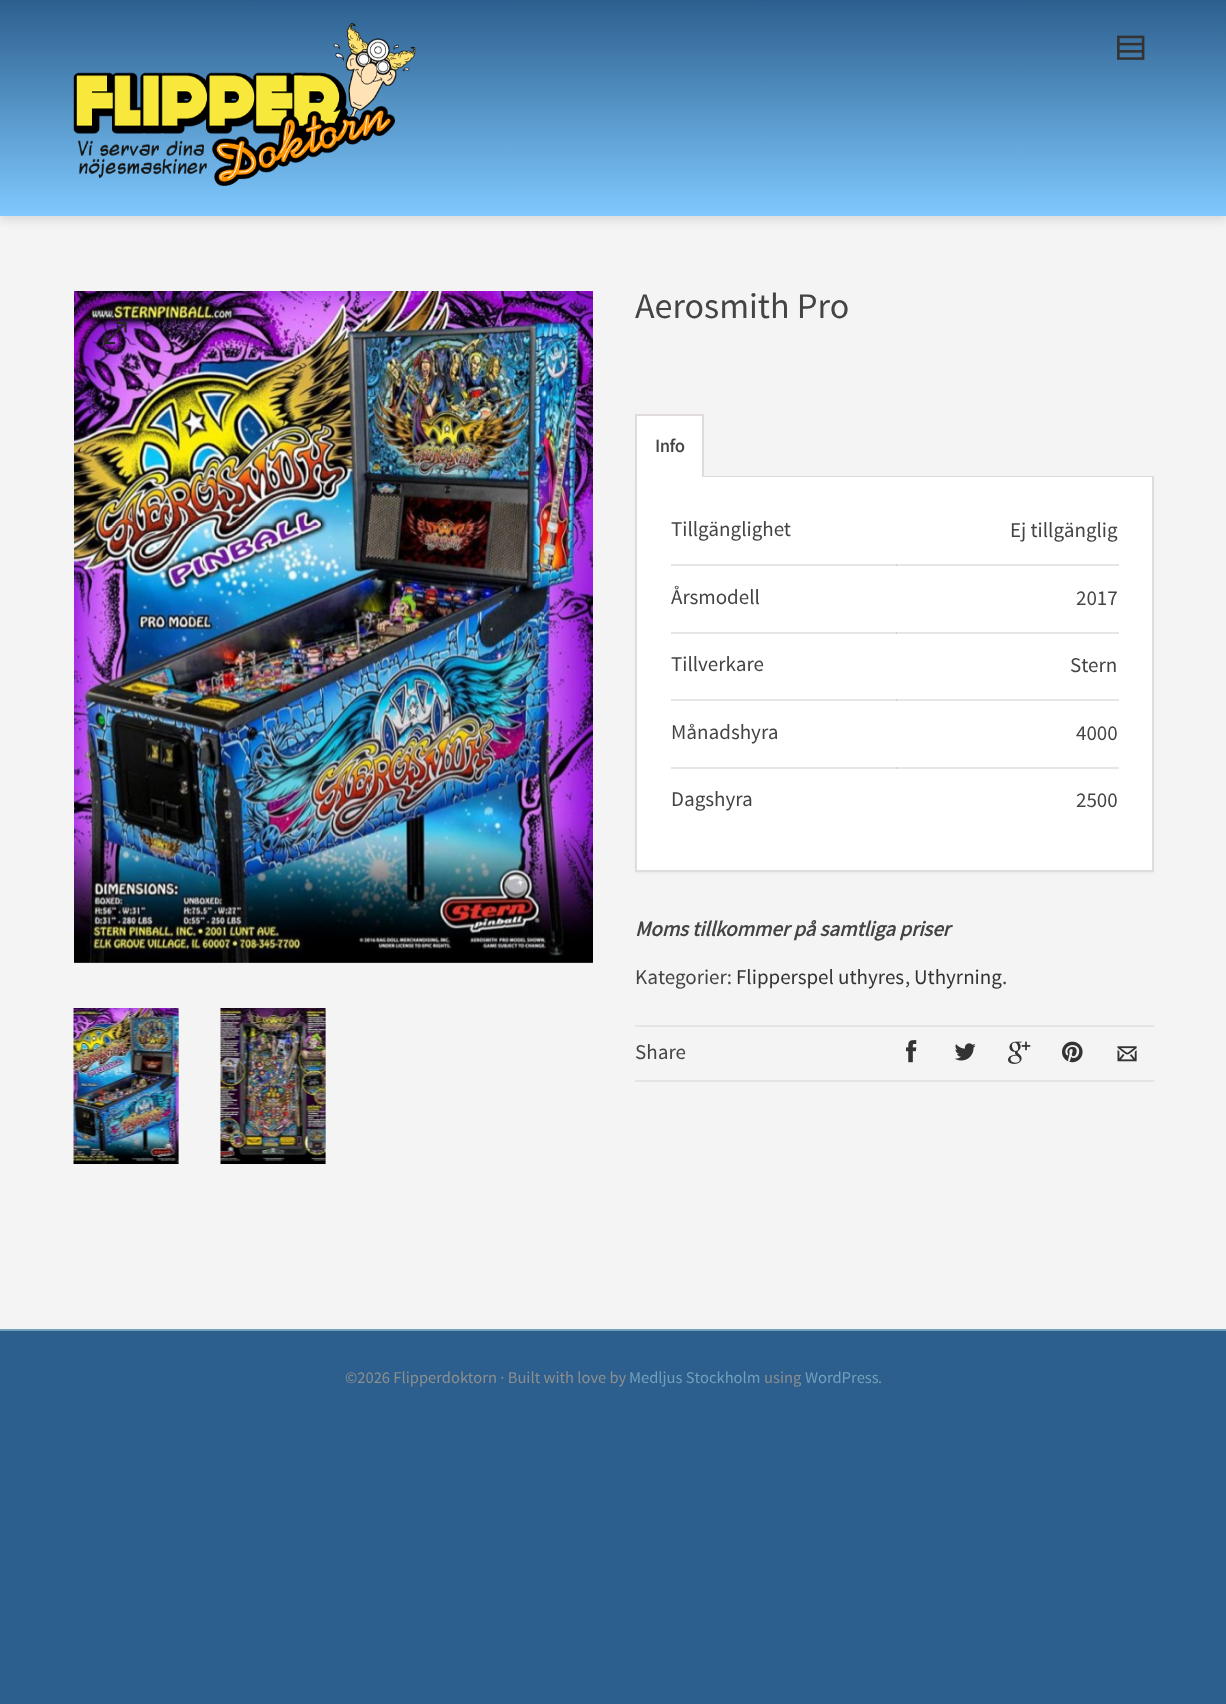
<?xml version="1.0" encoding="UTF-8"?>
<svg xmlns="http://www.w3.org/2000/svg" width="1226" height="1704">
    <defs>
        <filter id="blur1" x="-50%" y="-200%" width="200%" height="500%"><feGaussianBlur stdDeviation="4"/></filter>
        <linearGradient id="g1" gradientUnits="userSpaceOnUse" x1="614" y1="0" x2="614" y2="216"><stop offset="0" stop-color="#2C5F8E"/><stop offset="1" stop-color="#7FC9FF"/></linearGradient>
        <clipPath id="clip1"><rect x="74" y="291" width="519" height="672"/></clipPath>
        <filter id="blur2" x="-50%" y="-200%" width="200%" height="500%"><feGaussianBlur stdDeviation="1.5"/></filter>
        <clipPath id="clip2"><rect x="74" y="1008" width="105" height="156"/></clipPath>
        <clipPath id="clip3"><rect x="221" y="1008" width="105" height="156"/></clipPath>
        <filter id="blur3" x="-50%" y="-200%" width="200%" height="500%"><feGaussianBlur stdDeviation="1"/></filter>
    </defs>
    <rect width="100%" height="100%" fill="#2C5F8E"/>
    <rect x="0" y="216" width="1226" height="1113" fill="#F4F4F4"/>
    <rect x="0" y="5" width="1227" height="216" fill="#000000" fill-opacity="0.1" filter="url(#blur1)"/>
    <rect x="0" y="1" width="1226" height="215" fill="url(#g1)"/>
    <image x="73" y="22" width="343" height="164" href="img_01.png"/>
    <image x="1117" y="35" width="28" height="25" href="img_02.png"/>
    <g clip-path="url(#clip1)">
        <rect x="74" y="293" width="519" height="672" fill="#000000" fill-opacity="0.3" filter="url(#blur2)"/>
    </g>
    <image x="74" y="291" width="519" height="672" href="img_03.png"/>
    <image x="104" y="321" width="23" height="24" href="img_04.png"/>
    <g clip-path="url(#clip2)">
        <rect x="74" y="1010" width="105" height="156" fill="#000000" fill-opacity="0.3" filter="url(#blur2)"/>
    </g>
    <image x="73" y="1008" width="106" height="156" href="img_05.png"/>
    <g clip-path="url(#clip3)">
        <rect x="221" y="1010" width="105" height="156" fill="#000000" fill-opacity="0.3" filter="url(#blur2)"/>
    </g>
    <image x="220" y="1008" width="106" height="156" href="img_06.png"/>
    <text x="635" y="318" font-family="Source Sans Pro" font-size="36" fill="#444444">Aerosmith Pro</text>
    <rect x="635" y="479" width="519" height="394" fill="#000000" fill-opacity="0.05" filter="url(#blur3)"/>
    <rect x="637" y="416" width="65" height="61" fill="#FFFFFF"/>
    <rect x="635" y="414" width="69" height="2" fill="#E0DADF"/>
    <rect x="702" y="414" width="2" height="63" fill="#E0DADF"/>
    <rect x="635" y="414" width="2" height="63" fill="#E0DADF"/>
    <text x="655" y="452" font-family="Source Sans Pro" font-size="18" font-weight="700" fill="#444444">Info</text>
    <rect x="704" y="476" width="450" height="1" fill="#E0DADF"/>
    <rect x="637" y="477" width="515" height="393" fill="#FFFFFF"/>
    <rect x="671" y="564" width="448" height="2" fill="#E6E6E6"/>
    <rect x="671" y="632" width="448" height="2" fill="#E6E6E6"/>
    <rect x="671" y="699" width="448" height="2" fill="#E6E6E6"/>
    <rect x="671" y="767" width="448" height="2" fill="#E6E6E6"/>
    <rect x="1152" y="477" width="2" height="395" fill="#DDDDDD"/>
    <rect x="635" y="870" width="519" height="2" fill="#DDDDDD"/>
    <rect x="635" y="477" width="2" height="395" fill="#DDDDDD"/>
    <text x="671" y="536" font-family="Source Sans Pro" font-size="21" fill="#444444">Tillgänglighet</text>
    <text x="1010" y="537" font-family="Source Sans Pro" font-size="21" fill="#444444">Ej tillgänglig</text>
    <text x="671" y="604" font-family="Source Sans Pro" font-size="21" fill="#444444">Årsmodell</text>
    <rect x="896" y="564" width="1" height="2" fill="#CFCFCF"/>
    <text x="1076" y="605" font-family="Source Sans Pro" font-size="21" fill="#444444">2017</text>
    <text x="671" y="671" font-family="Source Sans Pro" font-size="21" fill="#444444">Tillverkare</text>
    <rect x="896" y="632" width="1" height="2" fill="#CFCFCF"/>
    <text x="1070" y="672" font-family="Source Sans Pro" font-size="21" fill="#444444">Stern</text>
    <text x="671" y="739" font-family="Source Sans Pro" font-size="21" fill="#444444">Månadshyra</text>
    <rect x="896" y="699" width="1" height="2" fill="#CFCFCF"/>
    <text x="1076" y="740" font-family="Source Sans Pro" font-size="21" fill="#444444">4000</text>
    <text x="671" y="806" font-family="Source Sans Pro" font-size="21" fill="#444444">Dagshyra</text>
    <rect x="896" y="767" width="1" height="2" fill="#CFCFCF"/>
    <text x="1076" y="807" font-family="Source Sans Pro" font-size="21" fill="#444444">2500</text>
    <text x="635" y="936" font-family="Source Sans Pro" font-size="21" font-weight="700" font-style="italic" fill="#444444">Moms tillkommer på samtliga priser</text>
    <text x="635" y="984" font-family="Source Sans Pro" font-size="21" fill="#444444">Kategorier:</text>
    <text x="736" y="984" font-family="Source Sans Pro" font-size="21" fill="#333333">Flipperspel uthyres</text>
    <text x="905" y="984" font-family="Source Sans Pro" font-size="21" fill="#444444">,</text>
    <text x="914" y="984" font-family="Source Sans Pro" font-size="21" fill="#333333">Uthyrning</text>
    <text x="1002" y="984" font-family="Source Sans Pro" font-size="21" fill="#444444">.</text>
    <rect x="635" y="1025" width="519" height="2" fill="#E4E4E4"/>
    <rect x="635" y="1080" width="519" height="2" fill="#E4E4E4"/>
    <text x="635" y="1059" font-family="Source Sans Pro" font-size="21" fill="#444444">Share</text>
    <image x="906" y="1040" width="11" height="23" href="img_07.png"/>
    <image x="954" y="1043" width="22" height="18" href="img_08.png"/>
    <image x="1008" y="1041" width="23" height="23" href="img_09.png"/>
    <image x="1062" y="1041" width="21" height="22" href="img_10.png"/>
    <image x="1117" y="1046" width="20" height="16" href="img_11.png"/>
    <rect x="0" y="1329" width="1226" height="2" fill="#71A1BA"/>
    <text x="345" y="1383" font-family="Source Sans Pro" font-size="16.5" fill="#8D8E8E">©2026 Flipperdoktorn · Built with love by</text>
    <text x="629" y="1383" font-family="Source Sans Pro" font-size="16.5" fill="#71A1BA">Medljus Stockholm</text>
    <text x="764" y="1383" font-family="Source Sans Pro" font-size="16.5" fill="#8D8E8E">using</text>
    <text x="805" y="1383" font-family="Source Sans Pro" font-size="16.5" fill="#71A1BA">WordPress</text>
    <text x="878" y="1383" font-family="Source Sans Pro" font-size="16.5" fill="#8D8E8E">.</text>
</svg>
